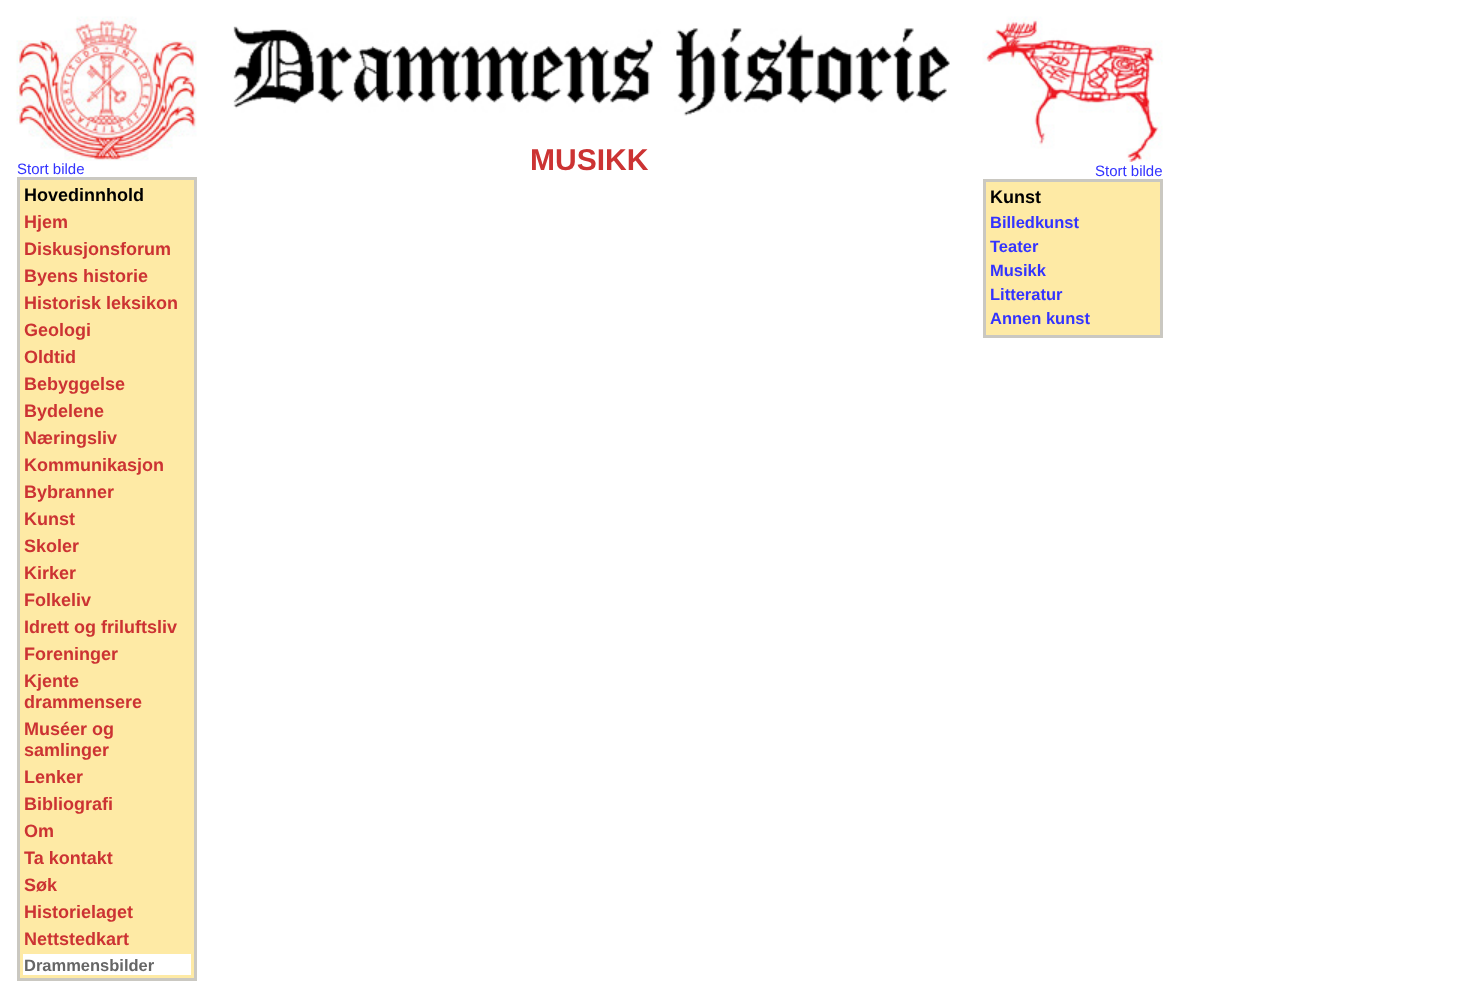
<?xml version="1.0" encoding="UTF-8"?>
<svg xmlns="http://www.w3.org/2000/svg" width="1472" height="992">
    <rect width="100%" height="100%" fill="#FFFFFF"/>
    <image x="233" y="26" width="717" height="90" href="img_01.png"/>
    <text x="530" y="170" font-family="Liberation Sans" font-size="30" font-weight="700" fill="#CC3333">MUSIKK</text>
    <image x="16" y="16" width="181" height="145" href="img_02.png"/>
    <text x="17" y="174" font-family="Liberation Sans" font-size="15" fill="#3333FF">Stort bilde</text>
    <rect x="18.5" y="178.5" width="177" height="801" fill="#FEEAA5" stroke="#CAC8C1" stroke-width="3"/>
    <text x="24" y="201" font-family="Liberation Sans" font-size="18" font-weight="700" fill="#000000">Hovedinnhold</text>
    <text font-family="Liberation Sans" font-size="18" font-weight="700" fill="#CC3333">
        <tspan x="24" y="228">Hjem</tspan>
        <tspan x="24" y="255">Diskusjonsforum</tspan>
        <tspan x="24" y="282">Byens historie</tspan>
        <tspan x="24" y="309">Historisk leksikon</tspan>
        <tspan x="24" y="336">Geologi</tspan>
        <tspan x="24" y="363">Oldtid</tspan>
        <tspan x="24" y="390">Bebyggelse</tspan>
        <tspan x="24" y="417">Bydelene</tspan>
        <tspan x="24" y="444">Næringsliv</tspan>
        <tspan x="24" y="471">Kommunikasjon</tspan>
        <tspan x="24" y="498">Bybranner</tspan>
        <tspan x="24" y="525">Kunst</tspan>
        <tspan x="24" y="552">Skoler</tspan>
        <tspan x="24" y="579">Kirker</tspan>
        <tspan x="24" y="606">Folkeliv</tspan>
        <tspan x="24" y="633">Idrett og friluftsliv</tspan>
        <tspan x="24" y="660">Foreninger</tspan>
        <tspan x="24" y="687">Kjente</tspan>
        <tspan x="24" y="708">drammensere</tspan>
        <tspan x="24" y="735">Muséer og</tspan>
        <tspan x="24" y="756">samlinger</tspan>
        <tspan x="24" y="783">Lenker</tspan>
        <tspan x="24" y="810">Bibliografi</tspan>
        <tspan x="24" y="837">Om</tspan>
        <tspan x="24" y="864">Ta kontakt</tspan>
        <tspan x="24" y="891">Søk</tspan>
        <tspan x="24" y="918">Historielaget</tspan>
        <tspan x="24" y="945">Nettstedkart</tspan>
    </text>
    <rect x="23" y="954" width="168" height="21" fill="#FFFFFF"/>
    <text x="24" y="971" font-family="Liberation Sans" font-size="16.5" font-weight="700" fill="#666666">Drammensbilder</text>
    <image x="982" y="16" width="181" height="146" href="img_03.png"/>
    <text x="1095" y="176" font-family="Liberation Sans" font-size="15" fill="#3333FF">Stort bilde</text>
    <rect x="984.5" y="180.5" width="177" height="156" fill="#FEEAA5" stroke="#CAC8C1" stroke-width="3"/>
    <text x="990" y="203" font-family="Liberation Sans" font-size="18" font-weight="700" fill="#000000">Kunst</text>
    <text font-family="Liberation Sans" font-size="16.5" font-weight="700" fill="#3333FF">
        <tspan x="990" y="228">Billedkunst</tspan>
        <tspan x="990" y="252">Teater</tspan>
        <tspan x="990" y="276">Musikk</tspan>
        <tspan x="990" y="300">Litteratur</tspan>
        <tspan x="990" y="324">Annen kunst</tspan>
    </text>
</svg>
